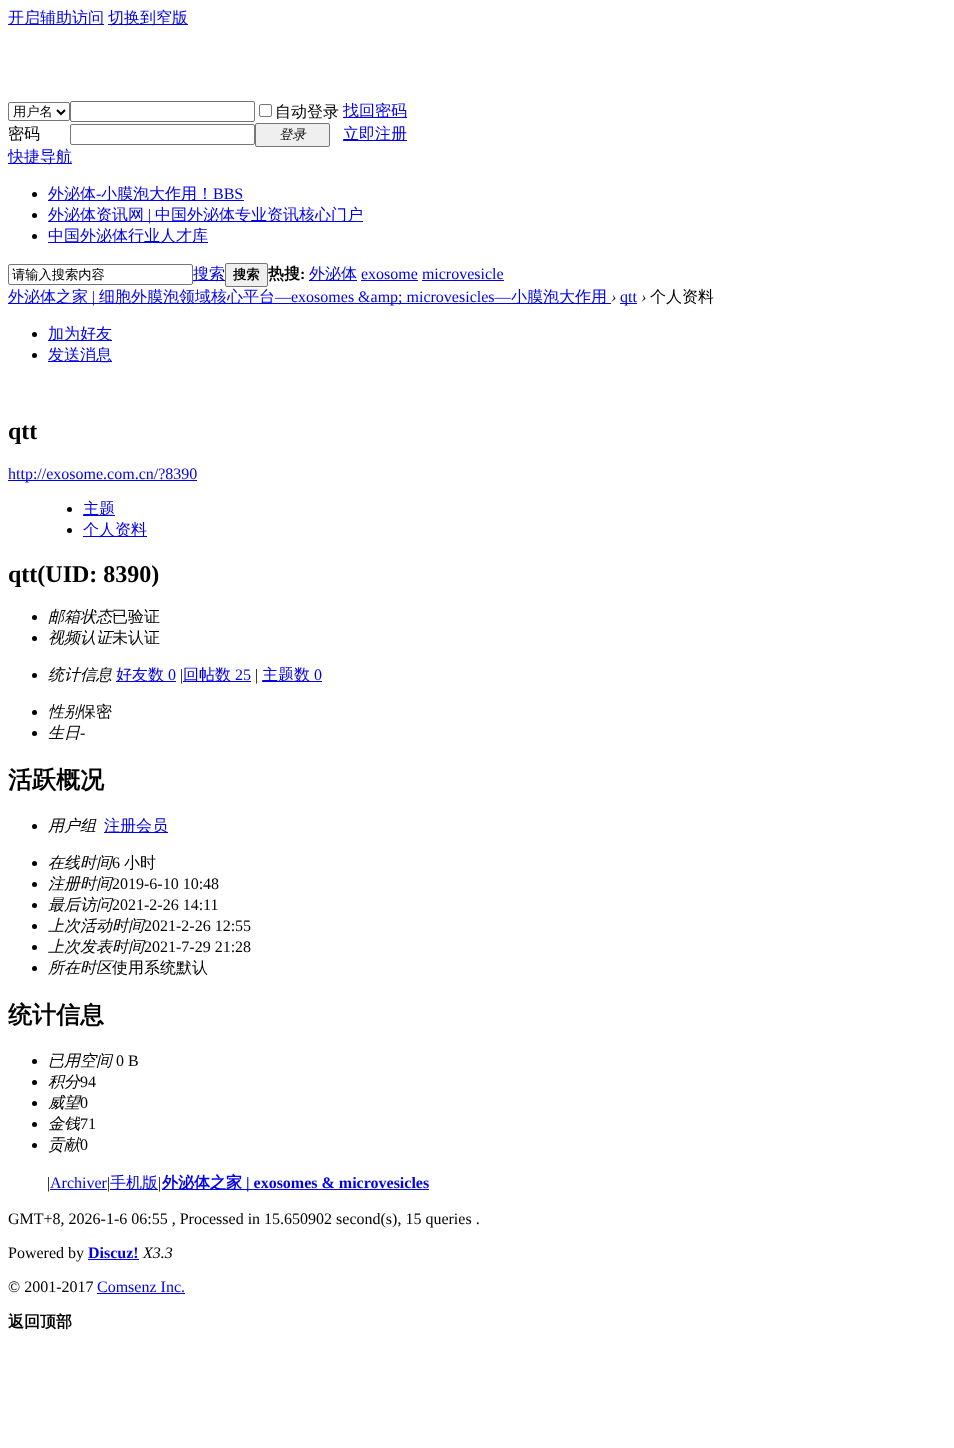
<?xml version="1.0" encoding="UTF-8"?>
<svg xmlns="http://www.w3.org/2000/svg" width="954" height="1448">
    <rect width="100%" height="100%" fill="#FFFFFF"/>
    <rect x="8" y="24" width="96" height="1" fill="#0000EE"/>
    <text x="8" y="23" font-family="WenQuanYi Zen Hei" font-size="16" font-weight="500" fill="#0000EE">开启辅助访问</text>
    <rect x="108" y="24" width="80" height="1" fill="#0000EE"/>
    <text x="108" y="23" font-family="WenQuanYi Zen Hei" font-size="16" font-weight="500" fill="#0000EE">切换到窄版</text>
    <rect x="8.5" y="102.5" width="61" height="18" rx="1.5" fill="none" stroke="#767676"/>
    <path d="M 57 110 L 61 114 L 65 110" fill="none" stroke="#000000" stroke-width="2"/>
    <text x="13" y="116" font-family="WenQuanYi Zen Hei" font-size="13.25" font-weight="500" fill="#000000">用户名</text>
    <rect x="70.5" y="101.5" width="184" height="20" rx="1.5" fill="none" stroke="#767676"/>
    <rect x="259.5" y="104.5" width="12" height="12" rx="1.5" fill="none" stroke="#767676"/>
    <text x="275" y="117" font-family="WenQuanYi Zen Hei" font-size="16" font-weight="500" fill="#000000">自动登录</text>
    <rect x="343" y="117" width="64" height="1" fill="#0000EE"/>
    <text x="343" y="116" font-family="WenQuanYi Zen Hei" font-size="16" font-weight="500" fill="#0000EE">找回密码</text>
    <text x="8" y="139" font-family="WenQuanYi Zen Hei" font-size="16" font-weight="500" fill="#000000">密码</text>
    <rect x="70.5" y="124.5" width="184" height="20" rx="1.5" fill="none" stroke="#767676"/>
    <rect x="255.5" y="123.5" width="74" height="23" rx="1.5" fill="#EFEFEF" stroke="#767676"/>
    <text x="279" y="139" font-family="WenQuanYi Zen Hei" font-size="13.25" font-weight="500" font-style="italic" fill="#000000">登录</text>
    <rect x="343" y="140" width="64" height="1" fill="#0000EE"/>
    <text x="343" y="139" font-family="WenQuanYi Zen Hei" font-size="16" font-weight="500" fill="#0000EE">立即注册</text>
    <rect x="8" y="163" width="64" height="1" fill="#0000EE"/>
    <text x="8" y="162" font-family="WenQuanYi Zen Hei" font-size="16" font-weight="500" fill="#0000EE">快捷导航</text>
    <circle cx="34.5" cy="194.5" r="2.5" fill="#000000"/>
    <rect x="48" y="200" width="196" height="1" fill="#0000EE"/>
    <text x="48" y="199" font-family="WenQuanYi Zen Hei" font-size="16" font-weight="500" fill="#0000EE">外泌体</text>
    <text x="96" y="199" font-family="Liberation Serif" font-size="16" fill="#0000EE">-</text>
    <text x="101" y="199" font-family="WenQuanYi Zen Hei" font-size="16" font-weight="500" fill="#0000EE">小膜泡大作用！</text>
    <text x="213" y="199" font-family="Liberation Serif" font-size="16" fill="#0000EE">BBS</text>
    <circle cx="34.5" cy="215.5" r="2.5" fill="#000000"/>
    <rect x="48" y="221" width="315" height="1" fill="#0000EE"/>
    <text x="48" y="220" font-family="WenQuanYi Zen Hei" font-size="16" font-weight="500" fill="#0000EE">外泌体资讯网</text>
    <text x="148" y="220" font-family="Liberation Serif" font-size="16" fill="#0000EE">|</text>
    <text x="155" y="220" font-family="WenQuanYi Zen Hei" font-size="16" font-weight="500" fill="#0000EE">中国外泌体专业资讯核心门户</text>
    <circle cx="34.5" cy="236.5" r="2.5" fill="#000000"/>
    <rect x="48" y="242" width="160" height="1" fill="#0000EE"/>
    <text x="48" y="241" font-family="WenQuanYi Zen Hei" font-size="16" font-weight="500" fill="#0000EE">中国外泌体行业人才库</text>
    <rect x="8.5" y="264.5" width="184" height="20" rx="1.5" fill="none" stroke="#767676"/>
    <text x="12" y="279" font-family="WenQuanYi Zen Hei" font-size="13.25" font-weight="500" fill="#000000">请输入搜索内容</text>
    <rect x="193" y="280" width="32" height="1" fill="#0000EE"/>
    <text x="193" y="279" font-family="WenQuanYi Zen Hei" font-size="16" font-weight="500" fill="#0000EE">搜索</text>
    <rect x="225.5" y="263.5" width="42" height="23" rx="1.5" fill="#EFEFEF" stroke="#767676"/>
    <text x="233" y="279" font-family="WenQuanYi Zen Hei" font-size="13.25" font-weight="700" fill="#000000">搜索</text>
    <text x="268" y="279" font-family="WenQuanYi Zen Hei" font-size="16" font-weight="700" fill="#000000">热搜</text>
    <text x="300" y="279" font-family="Liberation Serif" font-size="16" font-weight="700" fill="#000000">:</text>
    <rect x="309" y="280" width="48" height="1" fill="#0000EE"/>
    <text x="309" y="279" font-family="WenQuanYi Zen Hei" font-size="16" font-weight="500" fill="#0000EE">外泌体</text>
    <text x="361" y="279" font-family="Liberation Serif" font-size="16" fill="#0000EE">exosome microvesicle</text>
    <rect x="361" y="280" width="57" height="1" fill="#0000EE"/>
    <rect x="422" y="280" width="82" height="1" fill="#0000EE"/>
    <rect x="8" y="303" width="603" height="1" fill="#0000EE"/>
    <text x="8" y="302" font-family="WenQuanYi Zen Hei" font-size="16" font-weight="500" fill="#0000EE">外泌体之家</text>
    <text x="92" y="302" font-family="Liberation Serif" font-size="16" fill="#0000EE">|</text>
    <text x="99" y="302" font-family="WenQuanYi Zen Hei" font-size="16" font-weight="500" fill="#0000EE">细胞外膜泡领域核心平台</text>
    <text x="275" y="302" font-family="Liberation Serif" font-size="16" fill="#0000EE">—exosomes &amp;amp; microvesicles—</text>
    <text x="511" y="302" font-family="WenQuanYi Zen Hei" font-size="16" font-weight="500" fill="#0000EE">小膜泡大作用</text>
    <text x="611" y="302" font-family="Liberation Serif" font-size="16" font-style="italic" fill="#000000">›</text>
    <rect x="620" y="303" width="17" height="1" fill="#0000EE"/>
    <text x="620" y="302" font-family="Liberation Serif" font-size="16" fill="#0000EE">qtt</text>
    <text x="641" y="302" font-family="Liberation Serif" font-size="16" font-style="italic" fill="#000000">›</text>
    <text x="650" y="302" font-family="WenQuanYi Zen Hei" font-size="16" font-weight="500" fill="#000000">个人资料</text>
    <circle cx="34.5" cy="334.5" r="2.5" fill="#000000"/>
    <rect x="48" y="340" width="64" height="1" fill="#0000EE"/>
    <text x="48" y="339" font-family="WenQuanYi Zen Hei" font-size="16" font-weight="500" fill="#0000EE">加为好友</text>
    <circle cx="34.5" cy="355.5" r="2.5" fill="#000000"/>
    <rect x="48" y="361" width="64" height="1" fill="#0000EE"/>
    <text x="48" y="360" font-family="WenQuanYi Zen Hei" font-size="16" font-weight="500" fill="#0000EE">发送消息</text>
    <text x="8" y="439" font-family="Liberation Serif" font-size="24" font-weight="700" fill="#000000">qtt</text>
    <rect x="8" y="480" width="189" height="1" fill="#0000EE"/>
    <text x="8" y="479" font-family="Liberation Serif" font-size="16" fill="#0000EE">http://exosome.com.cn/?8390</text>
    <circle cx="69.5" cy="509.5" r="2.5" fill="#000000"/>
    <rect x="83" y="515" width="32" height="1" fill="#0000EE"/>
    <text x="83" y="514" font-family="WenQuanYi Zen Hei" font-size="16" font-weight="500" fill="#0000EE">主题</text>
    <circle cx="69.5" cy="530.5" r="2.5" fill="#000000"/>
    <rect x="83" y="536" width="64" height="1" fill="#0000EE"/>
    <text x="83" y="535" font-family="WenQuanYi Zen Hei" font-size="16" font-weight="500" fill="#0000EE">个人资料</text>
    <text x="8" y="582" font-family="Liberation Serif" font-size="24" font-weight="700" fill="#000000">qtt(UID: 8390)</text>
    <circle cx="34.5" cy="617.5" r="2.5" fill="#000000"/>
    <text x="48" y="622" font-family="WenQuanYi Zen Hei" font-size="16" font-weight="500" font-style="italic" fill="#000000">邮箱状态</text>
    <text x="112" y="622" font-family="WenQuanYi Zen Hei" font-size="16" font-weight="500" fill="#000000">已验证</text>
    <circle cx="34.5" cy="638.5" r="2.5" fill="#000000"/>
    <text x="48" y="643" font-family="WenQuanYi Zen Hei" font-size="16" font-weight="500" font-style="italic" fill="#000000">视频认证</text>
    <text x="112" y="643" font-family="WenQuanYi Zen Hei" font-size="16" font-weight="500" fill="#000000">未认证</text>
    <circle cx="34.5" cy="675.5" r="2.5" fill="#000000"/>
    <text x="48" y="680" font-family="WenQuanYi Zen Hei" font-size="16" font-weight="500" font-style="italic" fill="#000000">统计信息</text>
    <rect x="116" y="681" width="60" height="1" fill="#0000EE"/>
    <text x="116" y="680" font-family="WenQuanYi Zen Hei" font-size="16" font-weight="500" fill="#0000EE">好友数</text>
    <text x="168" y="680" font-family="Liberation Serif" font-size="16" fill="#0000EE">0</text>
    <text x="180" y="680" font-family="Liberation Serif" font-size="16" fill="#000000">|</text>
    <rect x="183" y="681" width="68" height="1" fill="#0000EE"/>
    <text x="183" y="680" font-family="WenQuanYi Zen Hei" font-size="16" font-weight="500" fill="#0000EE">回帖数</text>
    <text x="235" y="680" font-family="Liberation Serif" font-size="16" fill="#0000EE">25</text>
    <text x="255" y="680" font-family="Liberation Serif" font-size="16" fill="#000000">|</text>
    <rect x="262" y="681" width="60" height="1" fill="#0000EE"/>
    <text x="262" y="680" font-family="WenQuanYi Zen Hei" font-size="16" font-weight="500" fill="#0000EE">主题数</text>
    <text x="314" y="680" font-family="Liberation Serif" font-size="16" fill="#0000EE">0</text>
    <circle cx="34.5" cy="712.5" r="2.5" fill="#000000"/>
    <text x="48" y="717" font-family="WenQuanYi Zen Hei" font-size="16" font-weight="500" font-style="italic" fill="#000000">性别</text>
    <text x="80" y="717" font-family="WenQuanYi Zen Hei" font-size="16" font-weight="500" fill="#000000">保密</text>
    <circle cx="34.5" cy="733.5" r="2.5" fill="#000000"/>
    <text x="48" y="738" font-family="WenQuanYi Zen Hei" font-size="16" font-weight="500" font-style="italic" fill="#000000">生日</text>
    <text x="80" y="738" font-family="Liberation Serif" font-size="16" fill="#000000">-</text>
    <text x="8" y="788" font-family="WenQuanYi Zen Hei" font-size="24" font-weight="700" fill="#000000">活跃概况</text>
    <circle cx="34.5" cy="826.5" r="2.5" fill="#000000"/>
    <text x="48" y="831" font-family="WenQuanYi Zen Hei" font-size="16" font-weight="500" font-style="italic" fill="#000000">用户组</text>
    <rect x="104" y="832" width="64" height="1" fill="#0000EE"/>
    <text x="104" y="831" font-family="WenQuanYi Zen Hei" font-size="16" font-weight="500" fill="#0000EE">注册会员</text>
    <circle cx="34.5" cy="863.5" r="2.5" fill="#000000"/>
    <text x="48" y="868" font-family="WenQuanYi Zen Hei" font-size="16" font-weight="500" font-style="italic" fill="#000000">在线时间</text>
    <text x="112" y="868" font-family="Liberation Serif" font-size="16" fill="#000000">6</text>
    <text x="124" y="868" font-family="WenQuanYi Zen Hei" font-size="16" font-weight="500" fill="#000000">小时</text>
    <circle cx="34.5" cy="884.5" r="2.5" fill="#000000"/>
    <text x="48" y="889" font-family="WenQuanYi Zen Hei" font-size="16" font-weight="500" font-style="italic" fill="#000000">注册时间</text>
    <text x="112" y="889" font-family="Liberation Serif" font-size="16" fill="#000000">2019-6-10 10:48</text>
    <circle cx="34.5" cy="905.5" r="2.5" fill="#000000"/>
    <text x="48" y="910" font-family="WenQuanYi Zen Hei" font-size="16" font-weight="500" font-style="italic" fill="#000000">最后访问</text>
    <text x="112" y="910" font-family="Liberation Serif" font-size="16" fill="#000000">2021-2-26 14:11</text>
    <circle cx="34.5" cy="926.5" r="2.5" fill="#000000"/>
    <text x="48" y="931" font-family="WenQuanYi Zen Hei" font-size="16" font-weight="500" font-style="italic" fill="#000000">上次活动时间</text>
    <text x="144" y="931" font-family="Liberation Serif" font-size="16" fill="#000000">2021-2-26 12:55</text>
    <circle cx="34.5" cy="947.5" r="2.5" fill="#000000"/>
    <text x="48" y="952" font-family="WenQuanYi Zen Hei" font-size="16" font-weight="500" font-style="italic" fill="#000000">上次发表时间</text>
    <text x="144" y="952" font-family="Liberation Serif" font-size="16" fill="#000000">2021-7-29 21:28</text>
    <circle cx="34.5" cy="968.5" r="2.5" fill="#000000"/>
    <text x="48" y="973" font-family="WenQuanYi Zen Hei" font-size="16" font-weight="500" font-style="italic" fill="#000000">所在时区</text>
    <text x="112" y="973" font-family="WenQuanYi Zen Hei" font-size="16" font-weight="500" fill="#000000">使用系统默认</text>
    <text x="8" y="1023" font-family="WenQuanYi Zen Hei" font-size="24" font-weight="700" fill="#000000">统计信息</text>
    <circle cx="34.5" cy="1061.5" r="2.5" fill="#000000"/>
    <text x="48" y="1066" font-family="WenQuanYi Zen Hei" font-size="16" font-weight="500" font-style="italic" fill="#000000">已用空间</text>
    <text x="116" y="1066" font-family="Liberation Serif" font-size="16" fill="#000000">0 B</text>
    <circle cx="34.5" cy="1082.5" r="2.5" fill="#000000"/>
    <text x="48" y="1087" font-family="WenQuanYi Zen Hei" font-size="16" font-weight="500" font-style="italic" fill="#000000">积分</text>
    <text x="80" y="1087" font-family="Liberation Serif" font-size="16" fill="#000000">94</text>
    <circle cx="34.5" cy="1103.5" r="2.5" fill="#000000"/>
    <text x="48" y="1108" font-family="WenQuanYi Zen Hei" font-size="16" font-weight="500" font-style="italic" fill="#000000">威望</text>
    <text x="80" y="1108" font-family="Liberation Serif" font-size="16" fill="#000000">0</text>
    <circle cx="34.5" cy="1124.5" r="2.5" fill="#000000"/>
    <text x="48" y="1129" font-family="WenQuanYi Zen Hei" font-size="16" font-weight="500" font-style="italic" fill="#000000">金钱</text>
    <text x="80" y="1129" font-family="Liberation Serif" font-size="16" fill="#000000">71</text>
    <circle cx="34.5" cy="1145.5" r="2.5" fill="#000000"/>
    <text x="48" y="1150" font-family="WenQuanYi Zen Hei" font-size="16" font-weight="500" font-style="italic" fill="#000000">贡献</text>
    <text x="80" y="1150" font-family="Liberation Serif" font-size="16" fill="#000000">0</text>
    <text x="47" y="1188" font-family="Liberation Serif" font-size="16" fill="#000000">|</text>
    <text x="50" y="1188" font-family="Liberation Serif" font-size="16" fill="#0000EE">Archiver</text>
    <rect x="50" y="1189" width="57" height="1" fill="#0000EE"/>
    <text x="107" y="1188" font-family="Liberation Serif" font-size="16" fill="#000000">|</text>
    <rect x="110" y="1189" width="48" height="1" fill="#0000EE"/>
    <text x="110" y="1188" font-family="WenQuanYi Zen Hei" font-size="16" font-weight="500" fill="#0000EE">手机版</text>
    <text x="158" y="1188" font-family="Liberation Serif" font-size="16" fill="#000000">|</text>
    <rect x="162" y="1189" width="267" height="1" fill="#0000EE"/>
    <text x="162" y="1188" font-family="WenQuanYi Zen Hei" font-size="16" font-weight="700" fill="#0000EE">外泌体之家</text>
    <text x="246" y="1188" font-family="Liberation Serif" font-size="16" font-weight="700" fill="#0000EE">| exosomes &amp; microvesicles</text>
    <text x="8" y="1224" font-family="Liberation Serif" font-size="16" fill="#000000">GMT+8, 2026-1-6 06:55 , Processed in 15.650902 second(s), 15 queries .</text>
    <text x="8" y="1258" font-family="Liberation Serif" font-size="16" fill="#000000">Powered by</text>
    <text x="88" y="1258" font-family="Liberation Serif" font-size="16" font-weight="700" fill="#0000EE">Discuz!</text>
    <rect x="88" y="1259" width="51" height="1" fill="#0000EE"/>
    <text x="143" y="1258" font-family="Liberation Serif" font-size="16" font-style="italic" fill="#000000">X3.3</text>
    <text x="8" y="1292" font-family="Liberation Serif" font-size="16" fill="#000000">© 2001-2017</text>
    <text x="97" y="1292" font-family="Liberation Serif" font-size="16" fill="#0000EE">Comsenz Inc.</text>
    <rect x="97" y="1293" width="88" height="1" fill="#0000EE"/>
    <text x="8" y="1327" font-family="WenQuanYi Zen Hei" font-size="16" font-weight="700" fill="#000000">返回顶部</text>
</svg>
